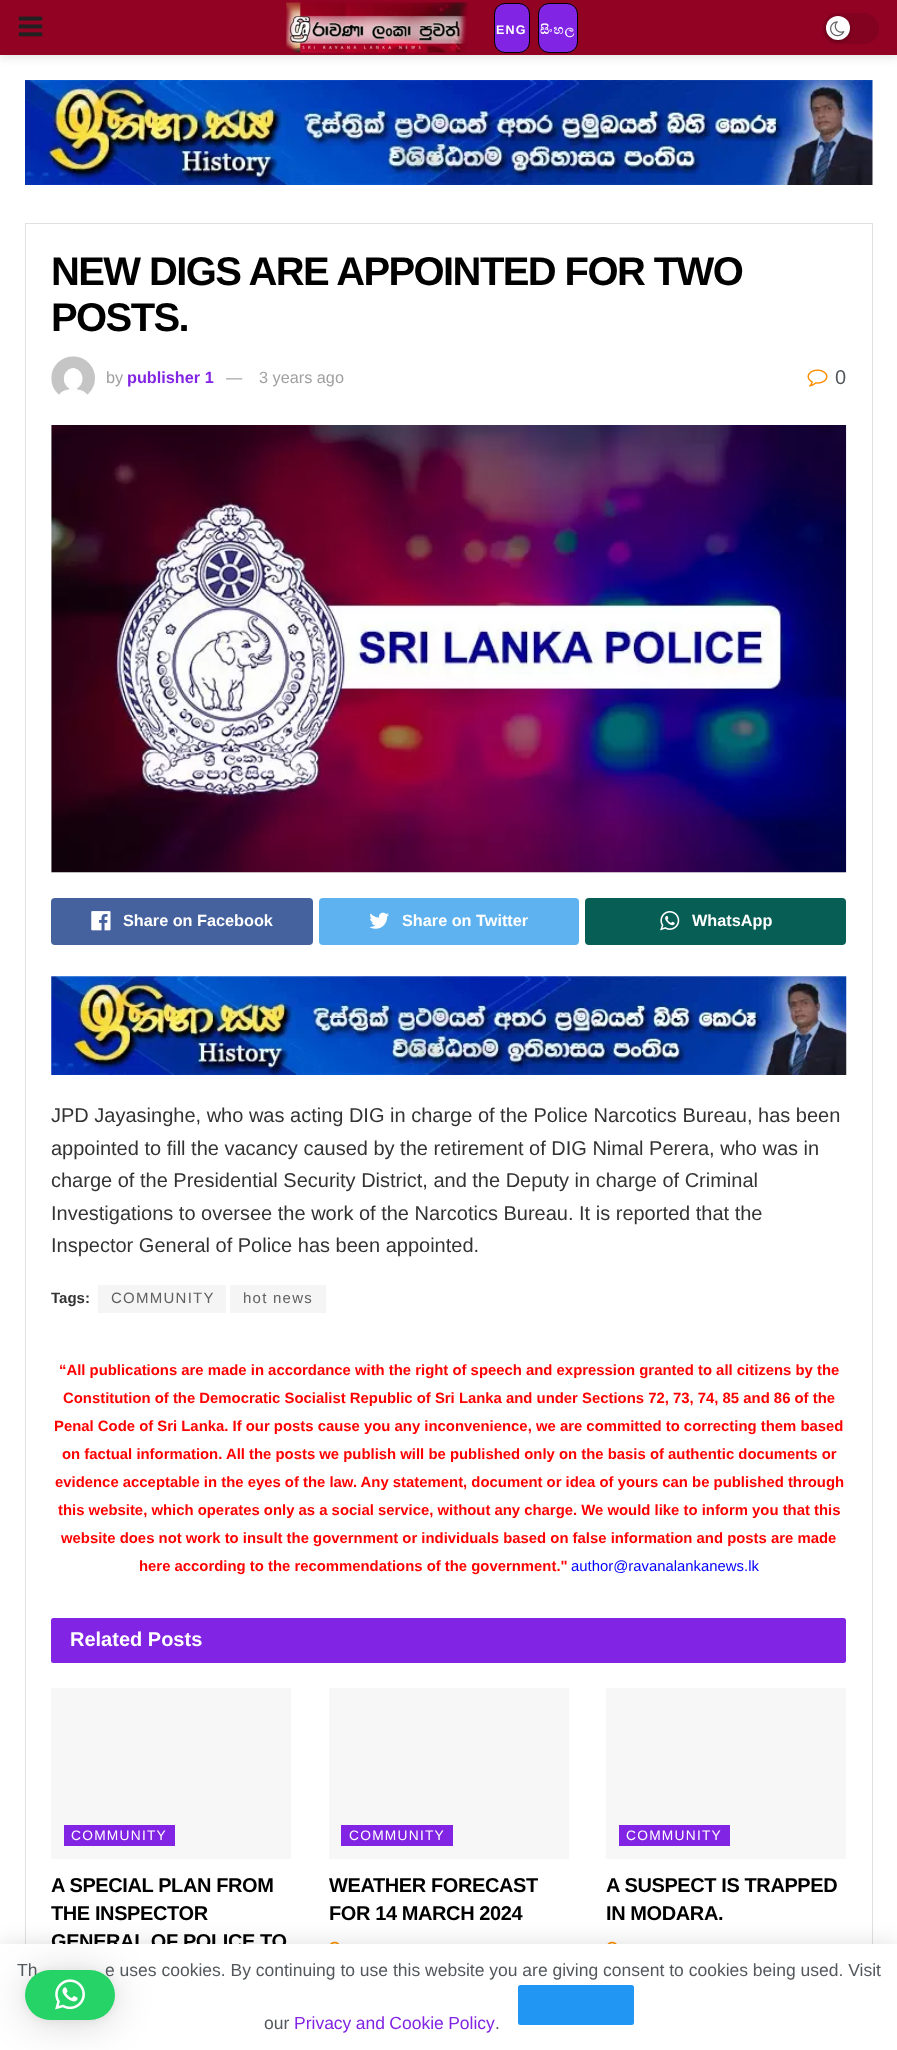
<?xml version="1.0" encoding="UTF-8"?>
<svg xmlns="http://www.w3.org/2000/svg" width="897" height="2050">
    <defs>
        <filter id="blur1" x="-50%" y="-200%" width="200%" height="500%"><feGaussianBlur stdDeviation="4"/></filter>
        <filter id="blur2" x="-50%" y="-200%" width="200%" height="500%"><feGaussianBlur stdDeviation="2"/></filter>
        <filter id="blur3" x="-50%" y="-200%" width="200%" height="500%"><feGaussianBlur stdDeviation="12.5"/></filter>
        <filter id="blur4" x="-50%" y="-200%" width="200%" height="500%"><feGaussianBlur stdDeviation="20"/></filter>
    </defs>
    <rect width="100%" height="100%" fill="#FFFFFF"/>
    <rect x="0" y="3" width="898" height="55" fill="#000000" fill-opacity="0.1" filter="url(#blur1)"/>
    <rect x="0" y="0" width="897" height="55" fill="#910223"/>
    <image x="18" y="16" width="25" height="21" href="img_01.png"/>
    <image x="286" y="2" width="182" height="51" href="img_02.png"/>
    <rect x="494.5" y="3.5" width="35" height="49" rx="10.5" fill="#8224E3" stroke="#000000"/>
    <text x="496" y="34" font-family="Liberation Sans" font-size="12.5" font-weight="700" letter-spacing="1.25" fill="#FFFFFF">ENG</text>
    <rect x="538.5" y="3.5" width="39" height="49" rx="10.5" fill="#8224E3" stroke="#000000"/>
    <text x="540" y="34" font-family="FreeSerif" font-size="12.5" font-weight="700" letter-spacing="1.25" fill="#FFFFFF">සිංහල</text>
    <rect x="823" y="13" width="56" height="31" rx="15.5" fill="#830220"/>
    <rect x="826" y="18" width="24" height="23" rx="11.5" fill="#000000" fill-opacity="0.3" filter="url(#blur2)"/>
    <circle cx="838" cy="28" r="12" fill="#FFFFFF"/>
    <image x="830" y="21" width="15" height="16" href="img_03.png"/>
    <image x="25" y="80" width="848" height="105" href="img_04.png"/>
    <rect x="25.5" y="223.5" width="847" height="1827" fill="none" stroke="#E0E0E0"/>
    <text font-family="Liberation Sans" font-size="40" font-weight="700" letter-spacing="-1.6" fill="#000000">
        <tspan x="51" y="285">NEW DIGS ARE APPOINTED FOR TWO</tspan>
        <tspan x="51" y="331">POSTS.</tspan>
    </text>
    <image x="51" y="356" width="44" height="39" href="img_05.png"/>
    <text x="106" y="383" font-family="Liberation Sans" font-size="16.25" fill="#A0A0A0">by</text>
    <text x="127" y="383" font-family="Liberation Sans" font-size="16.25" font-weight="700" fill="#8224E3">publisher 1</text>
    <text x="226" y="383" font-family="Liberation Sans" font-size="16.25" fill="#A0A0A0">—</text>
    <text x="259" y="383" font-family="Liberation Sans" font-size="16.25" fill="#A0A0A0">3 years ago</text>
    <image x="807" y="369" width="21" height="18" href="img_06.png"/>
    <text x="835" y="384" font-family="Liberation Sans" font-size="20" fill="#53585C">0</text>
    <rect x="51" y="425" width="795" height="448" fill="#F7F7F7"/>
    <image x="51" y="425" width="796" height="448" href="img_07.png"/>
    <rect x="51" y="898" width="262" height="47" rx="4" fill="#45629F"/>
    <image x="91" y="911" width="20" height="20" href="img_08.png"/>
    <text x="123" y="926" font-family="Liberation Sans" font-size="16.25" font-weight="700" fill="#FFFFFF">Share on Facebook</text>
    <rect x="319" y="898" width="260" height="47" rx="4" fill="#5EB2EF"/>
    <image x="369" y="912" width="20" height="17" href="img_09.png"/>
    <text x="402" y="926" font-family="Liberation Sans" font-size="16.25" font-weight="700" fill="#FFFFFF">Share on Twitter</text>
    <rect x="585" y="898" width="261" height="47" rx="4" fill="#075E54"/>
    <image x="660" y="911" width="20" height="20" href="img_10.png"/>
    <text x="692" y="926" font-family="Liberation Sans" font-size="16.25" font-weight="700" fill="#FFFFFF">WhatsApp</text>
    <image x="51" y="976" width="796" height="99" href="img_11.png"/>
    <text font-family="Liberation Sans" font-size="20" fill="#333333">
        <tspan x="51" y="1122">JPD Jayasinghe, who was acting DIG in charge of the Police Narcotics Bureau, has been</tspan>
        <tspan x="51" y="1155">appointed to fill the vacancy caused by the retirement of DIG Nimal Perera, who was in</tspan>
        <tspan x="51" y="1187">charge of the Presidential Security District, and the Deputy in charge of Criminal</tspan>
        <tspan x="51" y="1220">Investigations to oversee the work of the Narcotics Bureau. It is reported that the</tspan>
        <tspan x="51" y="1252">Inspector General of Police has been appointed.</tspan>
    </text>
    <text x="51" y="1303" font-family="Liberation Sans" font-size="15" font-weight="700" fill="#333333">Tags:</text>
    <rect x="98" y="1285" width="128" height="28" fill="#F5F5F5"/>
    <text x="111" y="1303" font-family="Liberation Sans" font-size="15" letter-spacing="1.25" fill="#616161">COMMUNITY</text>
    <rect x="230" y="1285" width="96" height="28" fill="#F5F5F5"/>
    <text x="243" y="1303" font-family="Liberation Sans" font-size="15" letter-spacing="1.25" fill="#616161">hot news</text>
    <text x="59" y="1375" font-family="Liberation Sans" font-size="14.88" font-weight="700" fill="#FF0000">“All publications are made in accordance with the right of speech and expression granted to all citizens by the</text>
    <text x="63" y="1403" font-family="Liberation Sans" font-size="14.88" font-weight="700" fill="#FF0000">Constitution of the Democratic Socialist Republic of Sri Lanka and under Sections 72, 73, 74, 85 and 86 of the</text>
    <text x="54" y="1431" font-family="Liberation Sans" font-size="14.88" font-weight="700" fill="#FF0000">Penal Code of Sri Lanka. If our posts cause you any inconvenience, we are committed to correcting them based</text>
    <text x="62" y="1459" font-family="Liberation Sans" font-size="14.88" font-weight="700" fill="#FF0000">on factual information. All the posts we publish will be published only on the basis of authentic documents or</text>
    <text x="55" y="1487" font-family="Liberation Sans" font-size="14.88" font-weight="700" fill="#FF0000">evidence acceptable in the eyes of the law. Any statement, document or idea of yours can be published through</text>
    <text x="58" y="1515" font-family="Liberation Sans" font-size="14.88" font-weight="700" fill="#FF0000">this website, which operates only as a social service, without any charge. We would like to inform you that this</text>
    <text x="61" y="1543" font-family="Liberation Sans" font-size="14.88" font-weight="700" fill="#FF0000">website does not work to insult the government or individuals based on false information and posts are made</text>
    <text x="139" y="1571" font-family="Liberation Sans" font-size="14.88" font-weight="700" fill="#FF0000">here according to the recommendations of the government."</text>
    <text x="571" y="1571" font-family="Liberation Sans" font-size="14.88" fill="#0000FF">author@ravanalankanews.lk</text>
    <rect x="51" y="1618" width="795" height="45" rx="2.5" fill="#8224E3"/>
    <text x="70" y="1646" font-family="Liberation Sans" font-size="20" font-weight="700" fill="#FFFFFF">Related Posts</text>
    <rect x="51" y="1688" width="240" height="171" fill="#F7F7F7"/>
    <rect x="64" y="1825" width="111" height="21" fill="#8224E3"/>
    <text x="71" y="1840" font-family="Liberation Sans" font-size="13.75" letter-spacing="1.25" fill="#FFFFFF">COMMUNITY</text>
    <text font-family="Liberation Sans" font-size="20" font-weight="700" letter-spacing="-0.4" fill="#000000">
        <tspan x="51" y="1892">A SPECIAL PLAN FROM</tspan>
        <tspan x="51" y="1920">THE INSPECTOR</tspan>
        <tspan x="51" y="1948">GENERAL OF POLICE TO</tspan>
    </text>
    <rect x="329" y="1688" width="240" height="171" fill="#F7F7F7"/>
    <rect x="341" y="1825" width="112" height="21" fill="#8224E3"/>
    <text x="349" y="1840" font-family="Liberation Sans" font-size="13.75" letter-spacing="1.25" fill="#FFFFFF">COMMUNITY</text>
    <text font-family="Liberation Sans" font-size="20" font-weight="700" letter-spacing="-0.4" fill="#000000">
        <tspan x="329" y="1892">WEATHER FORECAST</tspan>
        <tspan x="329" y="1920">FOR 14 MARCH 2024</tspan>
    </text>
    <image x="330" y="1941" width="10" height="3" href="img_12.png"/>
    <rect x="606" y="1688" width="240" height="171" fill="#F7F7F7"/>
    <rect x="619" y="1825" width="111" height="21" fill="#8224E3"/>
    <text x="626" y="1840" font-family="Liberation Sans" font-size="13.75" letter-spacing="1.25" fill="#FFFFFF">COMMUNITY</text>
    <text font-family="Liberation Sans" font-size="20" font-weight="700" letter-spacing="-0.4" fill="#000000">
        <tspan x="606" y="1892">A SUSPECT IS TRAPPED</tspan>
        <tspan x="606" y="1920">IN MODARA.</tspan>
    </text>
    <image x="607" y="1941" width="10" height="3" href="img_13.png"/>
    <rect x="0" y="1946" width="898" height="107" fill="#000000" fill-opacity="0.15" filter="url(#blur3)"/>
    <rect x="0" y="1944" width="897" height="106" fill="#FFFFFF"/>
    <rect x="25" y="1973" width="90" height="50" rx="25" fill="#000000" fill-opacity="0.16" filter="url(#blur4)"/>
    <rect x="25" y="1971" width="90" height="50" rx="25" fill="#000000" fill-opacity="0.06" filter="url(#blur1)"/>
    <text x="17" y="1976" font-family="Liberation Sans" font-size="17.5" fill="#53585C">Th</text>
    <text x="105" y="1976" font-family="Liberation Sans" font-size="17.5" fill="#53585C">e uses cookies. By continuing to use this website you are giving consent to cookies being used. Visit</text>
    <rect x="25" y="1970" width="90" height="50" rx="25" fill="#25D366"/>
    <image x="55" y="1979" width="30" height="31" href="img_14.png"/>
    <text x="264" y="2029" font-family="Liberation Sans" font-size="17.5" fill="#53585C">our</text>
    <text x="294" y="2029" word-spacing="-0.5" font-family="Liberation Sans" font-size="17.5" fill="#8224E3">Privacy and Cookie Policy</text>
    <text x="495" y="2029" font-family="Liberation Sans" font-size="17.5" fill="#53585C">.</text>
    <rect x="518" y="1985" width="116" height="40" rx="2.5" fill="#2196F3"/>
</svg>
